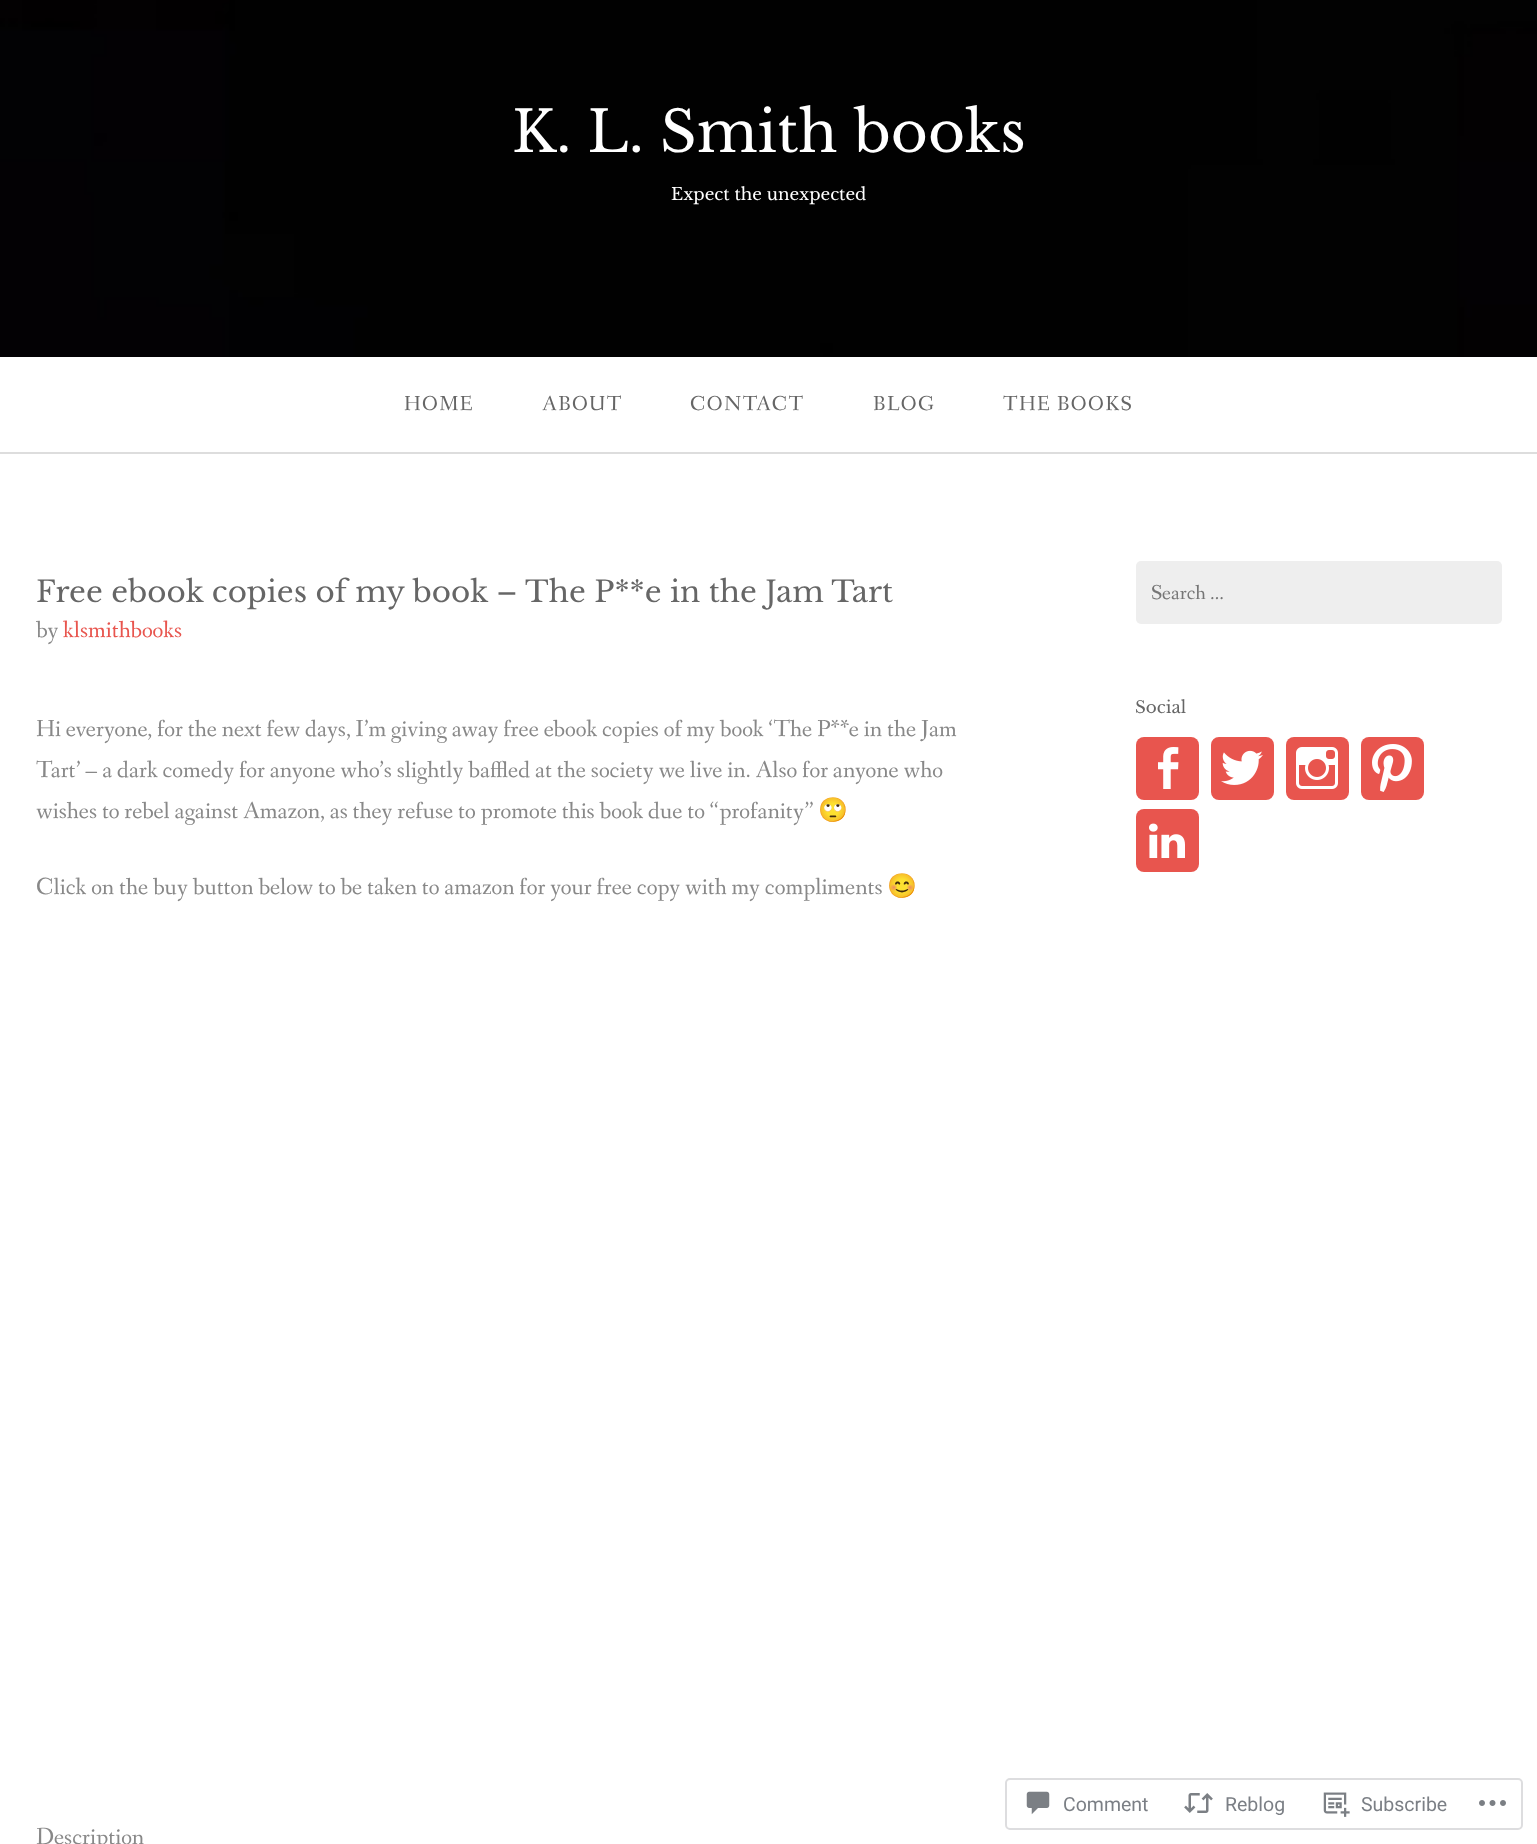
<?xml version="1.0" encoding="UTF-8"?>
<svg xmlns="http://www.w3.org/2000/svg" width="1537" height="1844">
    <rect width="100%" height="100%" fill="#FFFFFF"/>
    <image x="0" y="0" width="1537" height="357" href="img_01.png"/>
    <text x="512" y="152" font-family="Libre Baskerville" font-size="56.75" fill="#FFFFFF">K. L. Smith books</text>
    <text x="671" y="200" font-family="Libre Baskerville" font-size="16.75" fill="#FFFFFF">Expect the unexpected</text>
    <rect x="0" y="452" width="1537" height="2" fill="#DDDDDD"/>
    <text x="404" y="410" font-family="Fanwood Text" font-size="21" letter-spacing="1.5" fill="#666666">HOME</text>
    <text x="542" y="410" font-family="Fanwood Text" font-size="21" letter-spacing="1.5" fill="#666666">ABOUT</text>
    <text x="690" y="410" font-family="Fanwood Text" font-size="21" letter-spacing="1.5" fill="#666666">CONTACT</text>
    <text x="873" y="410" font-family="Fanwood Text" font-size="21" letter-spacing="1.5" fill="#666666">BLOG</text>
    <text x="1003" y="410" font-family="Fanwood Text" font-size="21" letter-spacing="1.5" fill="#666666">THE BOOKS</text>
    <text x="36" y="602" font-family="Libre Baskerville" font-size="29.4" fill="#666666">Free ebook copies of my book – The P**e in the Jam Tart</text>
    <text x="36" y="637" font-family="Fanwood Text" font-size="24" fill="#888888">by</text>
    <text x="63" y="637" font-family="Fanwood Text" font-size="24" fill="#E8554E">klsmithbooks</text>
    <text font-family="Fanwood Text" font-size="24" fill="#888888">
        <tspan x="36" y="736">Hi everyone, for the next few days, I’m giving away free ebook copies of my book ‘The P**e in the Jam</tspan>
        <tspan x="36" y="777">Tart’ – a dark comedy for anyone who’s slightly baffled at the society we live in. Also for anyone who</tspan>
        <tspan x="36" y="818">wishes to rebel against Amazon, as they refuse to promote this book due to “profanity”</tspan>
    </text>
    <text x="818" y="818" font-family="Noto Color Emoji" font-size="24" fill="#888888">🙄</text>
    <text x="36" y="894" font-family="Fanwood Text" font-size="24" fill="#888888">Click on the buy button below to be taken to amazon for your free copy with my compliments</text>
    <text x="887" y="894" font-family="Noto Color Emoji" font-size="24" fill="#888888">😊</text>
    <text x="36" y="1844" font-family="Fanwood Text" font-size="24" fill="#888888">Description</text>
    <rect x="1136" y="561" width="366" height="63" rx="5" fill="#EEEEEE"/>
    <text x="1151" y="599" font-family="Fanwood Text" font-size="21" fill="#757575">Search …</text>
    <text x="1135" y="713" font-family="Libre Baskerville" font-size="16.75" fill="#666666">Social</text>
    <rect x="1136" y="737" width="63" height="63" rx="8" fill="#E8554E"/>
    <image x="1158" y="747" width="21" height="42" href="img_02.png"/>
    <rect x="1211" y="737" width="63" height="63" rx="8" fill="#E8554E"/>
    <image x="1221" y="750" width="42" height="35" href="img_03.png"/>
    <rect x="1286" y="737" width="63" height="63" rx="8" fill="#E8554E"/>
    <image x="1296" y="747" width="42" height="42" href="img_04.png"/>
    <rect x="1361" y="737" width="63" height="63" rx="8" fill="#E8554E"/>
    <image x="1372" y="744" width="40" height="48" href="img_05.png"/>
    <rect x="1136" y="809" width="63" height="63" rx="8" fill="#E8554E"/>
    <image x="1149" y="823" width="36" height="35" href="img_06.png"/>
    <rect x="1006" y="1779" width="516" height="50" rx="4" fill="none" stroke="#DDDDDF" stroke-width="2"/>
    <image x="1026" y="1791" width="24" height="24" href="img_07.png"/>
    <text x="1063" y="1811" font-family="Roboto" font-size="19.5" fill="#7B7F85">Comment</text>
    <image x="1184" y="1793" width="29" height="20" href="img_08.png"/>
    <text x="1225" y="1811" font-family="Roboto" font-size="19.5" fill="#7B7F85">Reblog</text>
    <image x="1323" y="1792" width="27" height="25" href="img_09.png"/>
    <text x="1361" y="1811" font-family="Roboto" font-size="19.5" fill="#7B7F85">Subscribe</text>
    <image x="1479" y="1800" width="27" height="6" href="img_10.png"/>
</svg>
